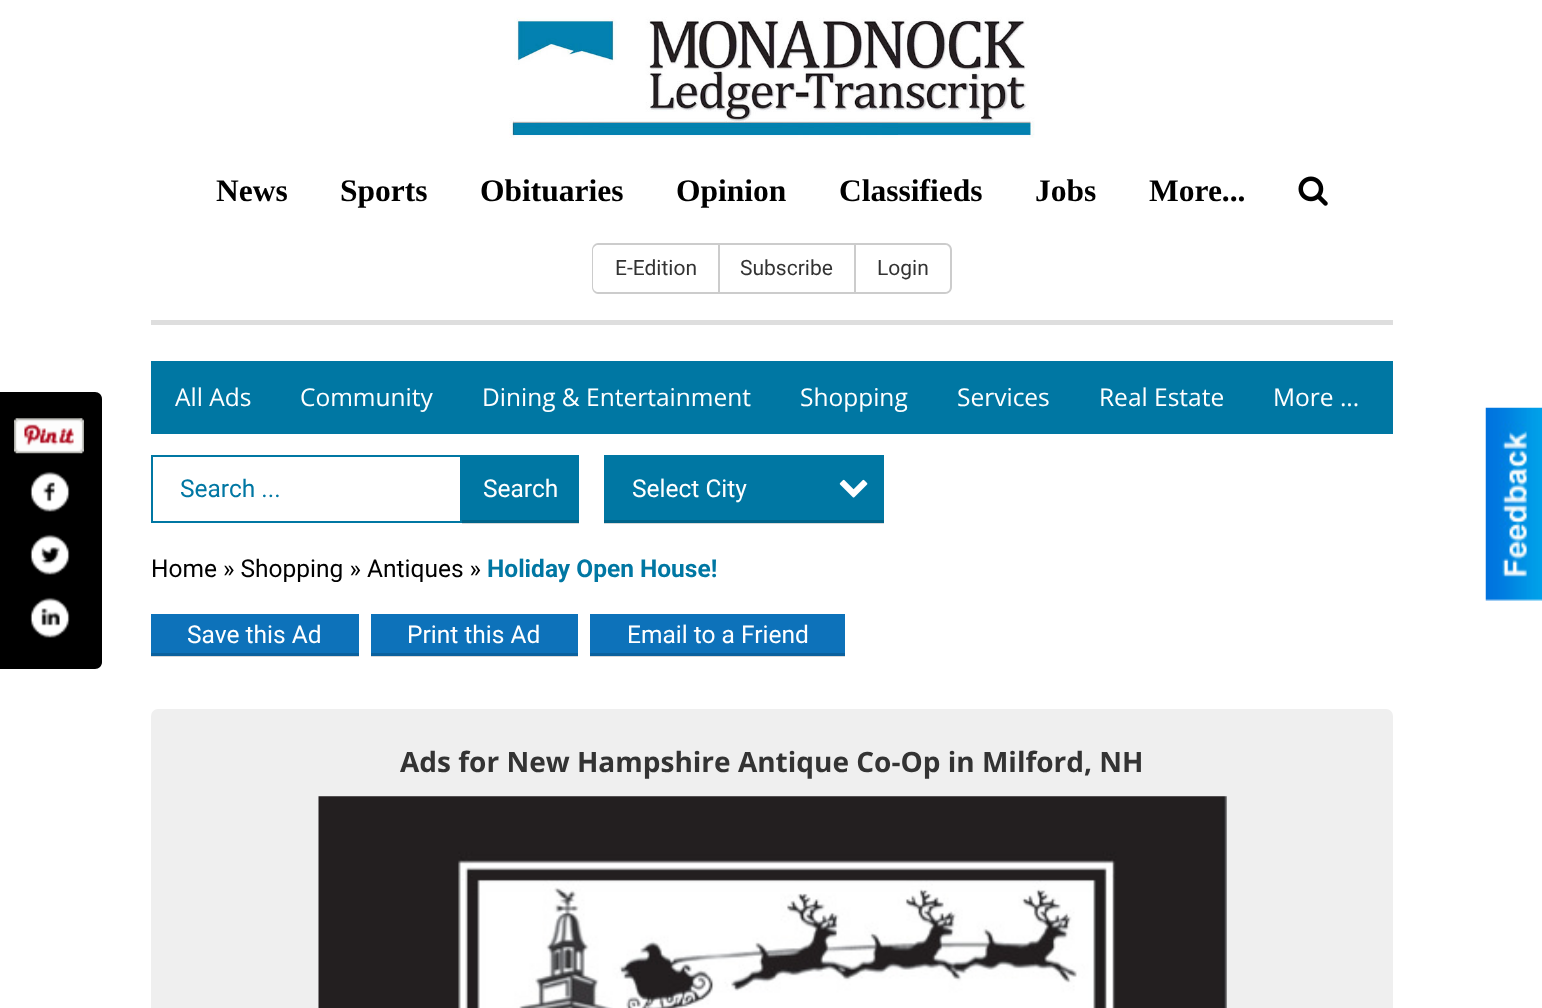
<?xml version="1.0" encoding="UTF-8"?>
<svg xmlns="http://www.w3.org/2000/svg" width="1542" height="1008">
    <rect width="100%" height="100%" fill="#FFFFFF"/>
    <rect x="462" y="523" width="117" height="1" fill="#D9D9D9"/>
    <rect x="590" y="656" width="255" height="1" fill="#D9D9D9"/>
    <rect x="371" y="656" width="207" height="1" fill="#D9D9D9"/>
    <rect x="151" y="656" width="208" height="1" fill="#D9D9D9"/>
    <rect x="604" y="523" width="280" height="1" fill="#D9D9D9"/>
    <rect x="151" y="320" width="1242" height="5" fill="#DEDEDE"/>
    <image x="509" y="17" width="526" height="121" href="img_01.png"/>
    <text x="216" y="201" font-family="Liberation Serif" font-size="31.5" font-weight="700" fill="#000000">News</text>
    <text x="340" y="201" font-family="Liberation Serif" font-size="31.5" font-weight="700" fill="#000000">Sports</text>
    <text x="480" y="201" font-family="Liberation Serif" font-size="31.5" font-weight="700" fill="#000000">Obituaries</text>
    <text x="676" y="201" font-family="Liberation Serif" font-size="31.5" font-weight="700" fill="#000000">Opinion</text>
    <text x="839" y="201" font-family="Liberation Serif" font-size="31.5" font-weight="700" fill="#000000">Classifieds</text>
    <text x="1035" y="201" font-family="Liberation Serif" font-size="31.5" font-weight="700" fill="#000000">Jobs</text>
    <text x="1149" y="201" font-family="Liberation Serif" font-size="31.5" font-weight="700" fill="#000000">More...</text>
    <image x="1298" y="176" width="30" height="30" href="img_02.png"/>
    <path d="M 598 243 H 718 V 294 H 598 C 595 294 592 291 592 287 V 250 C 592 246 595 243 598 243 Z M 598 245 H 718 V 292 H 598 C 596 292 593 290 593 287 V 250 C 593 247 596 245 598 245 Z" fill="#CCCCCC" fill-rule="evenodd"/>
    <text x="615" y="275" font-family="Roboto" font-size="21" fill="#333333">E-Edition</text>
    <rect x="719" y="244" width="136" height="49" fill="none" stroke="#CCCCCC" stroke-width="2"/>
    <text x="740" y="275" font-family="Roboto" font-size="21" fill="#333333">Subscribe</text>
    <path d="M 856 243 H 945 C 949 243 952 246 952 250 V 287 C 952 291 949 294 945 294 H 856 Z M 856 245 H 945 C 948 245 950 247 950 250 V 287 C 950 290 948 292 945 292 H 856 Z" fill="#CCCCCC" fill-rule="evenodd"/>
    <text x="877" y="275" font-family="Roboto" font-size="21" fill="#333333">Login</text>
    <path d="M 0 392 H 95 C 99 392 102 395 102 399 V 662 C 102 666 99 669 95 669 H 0 Z" fill="#000000"/>
    <image x="14" y="418" width="70" height="36" href="img_03.png"/>
    <image x="30" y="471" width="40" height="41" href="img_04.png"/>
    <image x="30" y="534" width="40" height="41" href="img_05.png"/>
    <image x="30" y="597" width="40" height="41" href="img_06.png"/>
    <rect x="151" y="361" width="1242" height="73" fill="#0077A3"/>
    <text x="175" y="406" font-family="Open Sans" font-size="24.5" fill="#FFFFFF">All Ads</text>
    <text x="300" y="406" font-family="Open Sans" font-size="24.5" fill="#FFFFFF">Community</text>
    <text x="482" y="406" font-family="Open Sans" font-size="24.5" fill="#FFFFFF">Dining &amp; Entertainment</text>
    <text x="800" y="406" font-family="Open Sans" font-size="24.5" fill="#FFFFFF">Shopping</text>
    <text x="957" y="406" font-family="Open Sans" font-size="24.5" fill="#FFFFFF">Services</text>
    <text x="1099" y="406" font-family="Open Sans" font-size="24.5" fill="#FFFFFF">Real Estate</text>
    <text x="1273" y="406" font-family="Open Sans" font-size="24.5" fill="#FFFFFF">More ...</text>
    <rect x="152" y="456" width="309" height="66" fill="none" stroke="#0077A3" stroke-width="2"/>
    <text x="180" y="497" font-family="Roboto" font-size="24.5" fill="#0077A3">Search ...</text>
    <rect x="462" y="455" width="117" height="65" fill="#0077A3"/>
    <rect x="462" y="520" width="117" height="3" fill="#00658B"/>
    <text x="483" y="497" font-family="Roboto" font-size="24.5" fill="#FFFFFF">Search</text>
    <rect x="604" y="455" width="280" height="65" fill="#0077A3"/>
    <rect x="604" y="520" width="280" height="3" fill="#00658B"/>
    <text x="632" y="497" font-family="Roboto" font-size="24.5" fill="#FFFFFF">Select City</text>
    <image x="839" y="479" width="29" height="19" href="img_07.png"/>
    <text x="151" y="577" font-family="Roboto" font-size="24.5" fill="#000000">Home » Shopping » Antiques »</text>
    <text x="487" y="577" font-family="Roboto" font-size="24.5" font-weight="700" fill="#0077A3">Holiday Open House!</text>
    <rect x="151" y="614" width="208" height="39" fill="#0D72BA"/>
    <rect x="151" y="653" width="208" height="3" fill="#0B619E"/>
    <text x="187" y="643" font-family="Roboto" font-size="24.5" fill="#FFFFFF">Save this Ad</text>
    <rect x="371" y="614" width="207" height="39" fill="#0D72BA"/>
    <rect x="371" y="653" width="207" height="3" fill="#0B619E"/>
    <text x="407" y="643" font-family="Roboto" font-size="24.5" fill="#FFFFFF">Print this Ad</text>
    <rect x="590" y="614" width="255" height="39" fill="#0D72BA"/>
    <rect x="590" y="653" width="255" height="3" fill="#0B619E"/>
    <text x="627" y="643" font-family="Roboto" font-size="24.5" fill="#FFFFFF">Email to a Friend</text>
    <rect x="151" y="709" width="1242" height="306" rx="7" fill="#EFEFEF"/>
    <text x="400" y="772" font-family="Open Sans" font-size="28" font-weight="700" fill="#333333">Ads for New Hampshire Antique Co-Op in Milford, NH</text>
    <image x="318" y="796" width="909" height="212" href="img_08.png"/>
    <image x="1485" y="407" width="57" height="194" href="img_09.png"/>
</svg>
